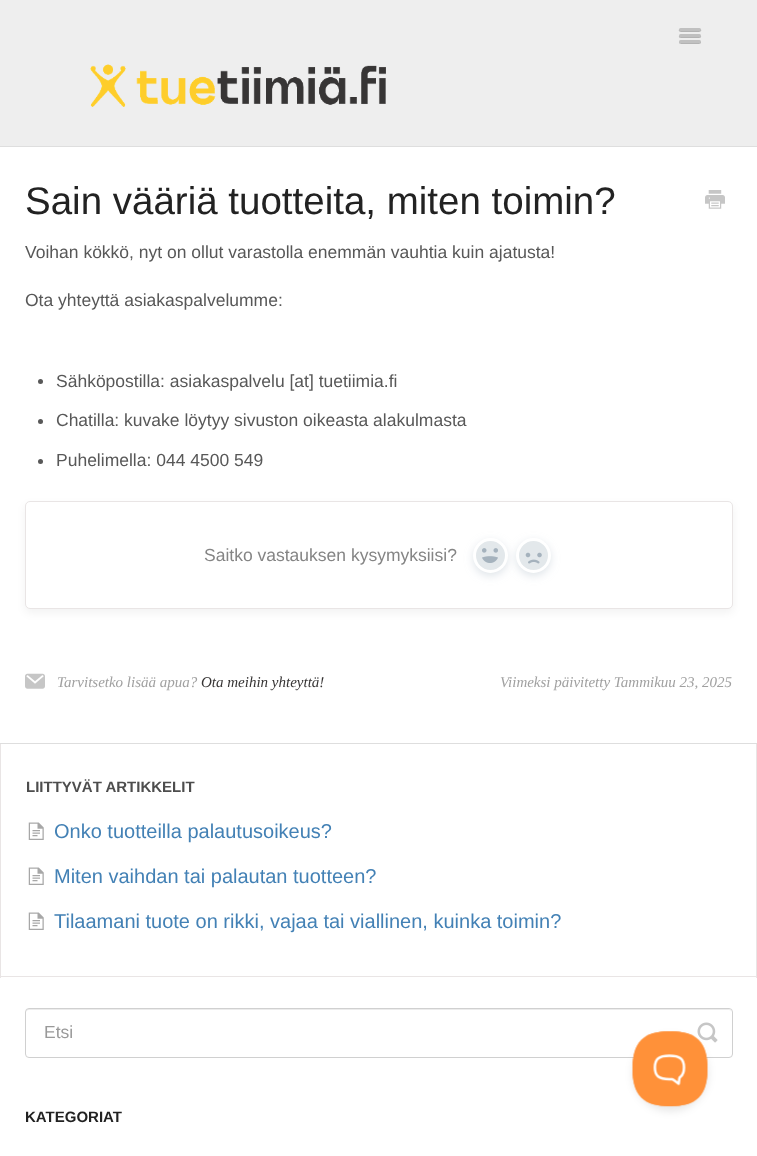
<?xml version="1.0" encoding="UTF-8"?>
<svg xmlns="http://www.w3.org/2000/svg" width="757" height="1156">
    <defs>
        <filter id="blur1" x="-50%" y="-200%" width="200%" height="500%"><feGaussianBlur stdDeviation="4"/></filter>
        <filter id="blur2" x="-50%" y="-200%" width="200%" height="500%"><feGaussianBlur stdDeviation="4.5"/></filter>
    </defs>
    <rect width="100%" height="100%" fill="#FFFFFF"/>
    <rect x="0" y="0" width="757" height="146" fill="#EEEEEE"/>
    <path d="M 679 29.5 C 677.5 32.5 683 32 683.5 32 H 696.5 C 697 32 702.5 32.5 701 29.5 C 700 30 680 30 679 29.5 Z" fill="#B3B3B3"/>
    <rect x="679" y="28" width="22" height="3" rx="1.5" fill="#C0C0C0"/>
    <path d="M 679 36 C 678 38.5 683 38 683.5 38 H 696.5 C 697 38 702 38.5 701 36 C 700 36.5 680 36.5 679 36 Z" fill="#B3B3B3"/>
    <rect x="679" y="34" width="22" height="3" rx="1.5" fill="#C0C0C0"/>
    <path d="M 679 42 C 678.5 44.5 683 44 683.5 44 H 696.5 C 697 44 701.5 44.5 701 42 C 700 43 680 43 679 42 Z" fill="#B3B3B3"/>
    <rect x="679" y="40" width="22" height="3" rx="1.5" fill="#C0C0C0"/>
    <image x="90" y="64" width="296" height="43" href="img_01.png"/>
    <rect x="0" y="146" width="757" height="1" fill="#DEDEDE"/>
    <rect x="0" y="743" width="757" height="1" fill="#DEDEDE"/>
    <text x="25" y="214" font-family="Liberation Sans" font-size="38.5" fill="#222222">Sain vääriä tuotteita, miten toimin?</text>
    <image x="705" y="190" width="20" height="19" href="img_02.png"/>
    <text x="25" y="258" font-family="Liberation Sans" font-size="17.5" fill="#585858">Voihan kökkö, nyt on ollut varastolla enemmän vauhtia kuin ajatusta!</text>
    <text x="25" y="306" font-family="Liberation Sans" font-size="17.5" fill="#585858">Ota yhteyttä asiakaspalvelumme:</text>
    <circle cx="40.5" cy="381.5" r="2.5" fill="#585858"/>
    <text x="56" y="387" font-family="Liberation Sans" font-size="17.5" fill="#585858">Sähköpostilla: asiakaspalvelu [at] tuetiimia.fi</text>
    <circle cx="40.5" cy="421.5" r="2.5" fill="#585858"/>
    <text x="56" y="426" font-family="Liberation Sans" font-size="17.5" fill="#585858">Chatilla: kuvake löytyy sivuston oikeasta alakulmasta</text>
    <circle cx="40.5" cy="461.5" r="2.5" fill="#585858"/>
    <text x="56" y="466" font-family="Liberation Sans" font-size="17.5" fill="#585858">Puhelimella: 044 4500 549</text>
    <rect x="25" y="505" width="708" height="108" rx="5" fill="#000000" fill-opacity="0.05" filter="url(#blur1)"/>
    <rect x="25.5" y="501.5" width="707" height="107" rx="4.5" fill="#FFFFFF" stroke="#E9E5E5"/>
    <text x="204" y="561" font-family="Liberation Sans" font-size="17.5" fill="#858585">Saitko vastauksen kysymyksiisi?</text>
    <rect x="473" y="541" width="35" height="35" rx="17.5" fill="#C1CBD4" fill-opacity="0.5" filter="url(#blur1)"/>
    <circle cx="490.5" cy="555.5" r="16" fill="#E3E8EB" stroke="#FFFFFF" stroke-width="3"/>
    <image x="482" y="548" width="16" height="15" href="img_03.png"/>
    <rect x="516" y="541" width="35" height="35" rx="17.5" fill="#C1CBD4" fill-opacity="0.5" filter="url(#blur1)"/>
    <circle cx="533.5" cy="555.5" r="16" fill="#E3E8EB" stroke="#FFFFFF" stroke-width="3"/>
    <image x="525" y="552" width="17" height="12" href="img_04.png"/>
    <image x="25" y="673" width="20" height="16" href="img_05.png"/>
    <text x="57" y="687" font-family="Liberation Serif" font-size="15" font-style="italic" fill="#A0A0A0">Tarvitsetko lisää apua?</text>
    <text x="201" y="687" font-family="Liberation Serif" font-size="15" font-style="italic" fill="#373535">Ota meihin yhteyttä!</text>
    <text x="500" y="687" font-family="Liberation Serif" font-size="15" font-style="italic" fill="#A0A0A0">Viimeksi päivitetty Tammikuu 23, 2025</text>
    <rect x="756" y="744" width="1" height="234" fill="#E9E5E5"/>
    <rect x="0" y="976" width="757" height="1" fill="#E9E5E5"/>
    <rect x="0" y="744" width="1" height="234" fill="#E9E5E5"/>
    <text x="26" y="792" font-family="Liberation Sans" font-size="15" font-weight="700" fill="#4D4D4D">LIITTYVÄT ARTIKKELIT</text>
    <image x="28" y="822" width="16" height="18" href="img_06.png"/>
    <text x="54" y="838" font-family="Liberation Sans" font-size="20" fill="#4381B5">Onko tuotteilla palautusoikeus?</text>
    <image x="28" y="867" width="16" height="18" href="img_06.png"/>
    <text x="54" y="883" font-family="Liberation Sans" font-size="20" fill="#4381B5">Miten vaihdan tai palautan tuotteen?</text>
    <image x="28" y="912" width="16" height="18" href="img_06.png"/>
    <text x="54" y="928" font-family="Liberation Sans" font-size="20" fill="#4381B5">Tilaamani tuote on rikki, vajaa tai viallinen, kuinka toimin?</text>
    <path d="M 29 1010 H 729 C 730 1010 731 1011 731 1012 C 731 1010 730 1009 728 1009 H 28 C 27 1009 26 1010 26 1012 C 26 1011 27 1010 29 1010 Z" fill="#ECECEC"/>
    <rect x="25.5" y="1008.5" width="707" height="49" rx="3.5" fill="none" stroke="#D0D0D0"/>
    <text x="44" y="1038" font-family="Liberation Sans" font-size="17.5" fill="#999999">Etsi</text>
    <image x="697" y="1022" width="21" height="21" href="img_07.png"/>
    <text x="25" y="1122" font-family="Liberation Sans" font-size="15" font-weight="700" fill="#222222">KATEGORIAT</text>
    <rect x="633" y="1036" width="75" height="75" rx="37.5" fill="#000000" fill-opacity="0.1" filter="url(#blur2)"/>
    <image x="632" y="1031" width="76" height="76" href="img_08.png"/>
</svg>
